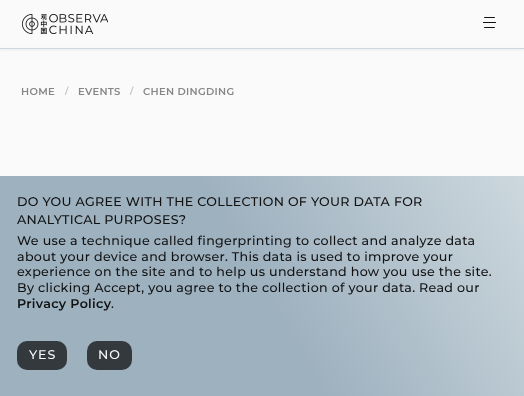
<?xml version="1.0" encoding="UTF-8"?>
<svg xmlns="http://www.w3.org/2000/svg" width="524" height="396">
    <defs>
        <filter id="blur1" x="-50%" y="-200%" width="200%" height="500%"><feGaussianBlur stdDeviation="1"/></filter>
        <linearGradient id="g1" gradientUnits="userSpaceOnUse" x1="18" y1="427" x2="506" y2="145"><stop offset="0" stop-color="#9EB1BF"/><stop offset="0.5" stop-color="#9EB1BF"/><stop offset="1" stop-color="#CDD8DE"/></linearGradient>
    </defs>
    <rect width="100%" height="100%" fill="#FAFAFA"/>
    <image x="22" y="14" width="86" height="20" href="img_01.png"/>
    <image x="483" y="17" width="13" height="11" href="img_02.png"/>
    <rect x="0" y="49" width="524" height="1" rx="1" fill="#000000" fill-opacity="0.1" filter="url(#blur1)"/>
    <rect x="0" y="48" width="524" height="1" fill="#CDD8DE"/>
    <text x="21" y="95" font-family="Montserrat" font-size="10" font-weight="600" letter-spacing="0.32" fill="#868686">HOME</text>
    <text x="65" y="94" font-family="Montserrat" font-size="9" font-weight="600" letter-spacing="0.32" fill="#C0C0C0">/</text>
    <text x="78" y="95" font-family="Montserrat" font-size="10" font-weight="600" letter-spacing="0.32" fill="#868686">EVENTS</text>
    <text x="130" y="94" font-family="Montserrat" font-size="9" font-weight="600" letter-spacing="0.32" fill="#C0C0C0">/</text>
    <text x="143" y="95" font-family="Montserrat" font-size="10" font-weight="600" letter-spacing="0.32" fill="#868686">CHEN DINGDING</text>
    <rect x="0" y="176" width="524" height="220" fill="url(#g1)"/>
    <text font-family="Montserrat" font-size="12.65" font-weight="500" letter-spacing="0.32" fill="#111111">
        <tspan x="17" y="206">DO YOU AGREE WITH THE COLLECTION OF YOUR DATA FOR</tspan>
        <tspan x="17" y="224">ANALYTICAL PURPOSES?</tspan>
        <tspan x="17" y="245">We use a technique called fingerprinting to collect and analyze data</tspan>
        <tspan x="17" y="261">about your device and browser. This data is used to improve your</tspan>
        <tspan x="17" y="276">experience on the site and to help us understand how you use the site.</tspan>
        <tspan x="17" y="292">By clicking Accept, you agree to the collection of your data. Read our</tspan>
    </text>
    <text x="17" y="308" font-family="Montserrat" font-size="12.65" font-weight="600" letter-spacing="0.32" fill="#111111">Privacy Policy</text>
    <text x="111" y="308" font-family="Montserrat" font-size="12.65" font-weight="500" letter-spacing="0.32" fill="#111111">.</text>
    <rect x="17" y="341" width="50" height="29" rx="10" fill="#34393D"/>
    <text x="29" y="359" font-family="'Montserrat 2'" font-size="12.65" font-weight="500" letter-spacing="1" fill="#FAFAFA">YES</text>
    <rect x="87" y="341" width="45" height="29" rx="10" fill="#34393D"/>
    <text x="98" y="359" font-family="'Montserrat 2'" font-size="12.65" font-weight="500" letter-spacing="1" fill="#FAFAFA">NO</text>
</svg>
